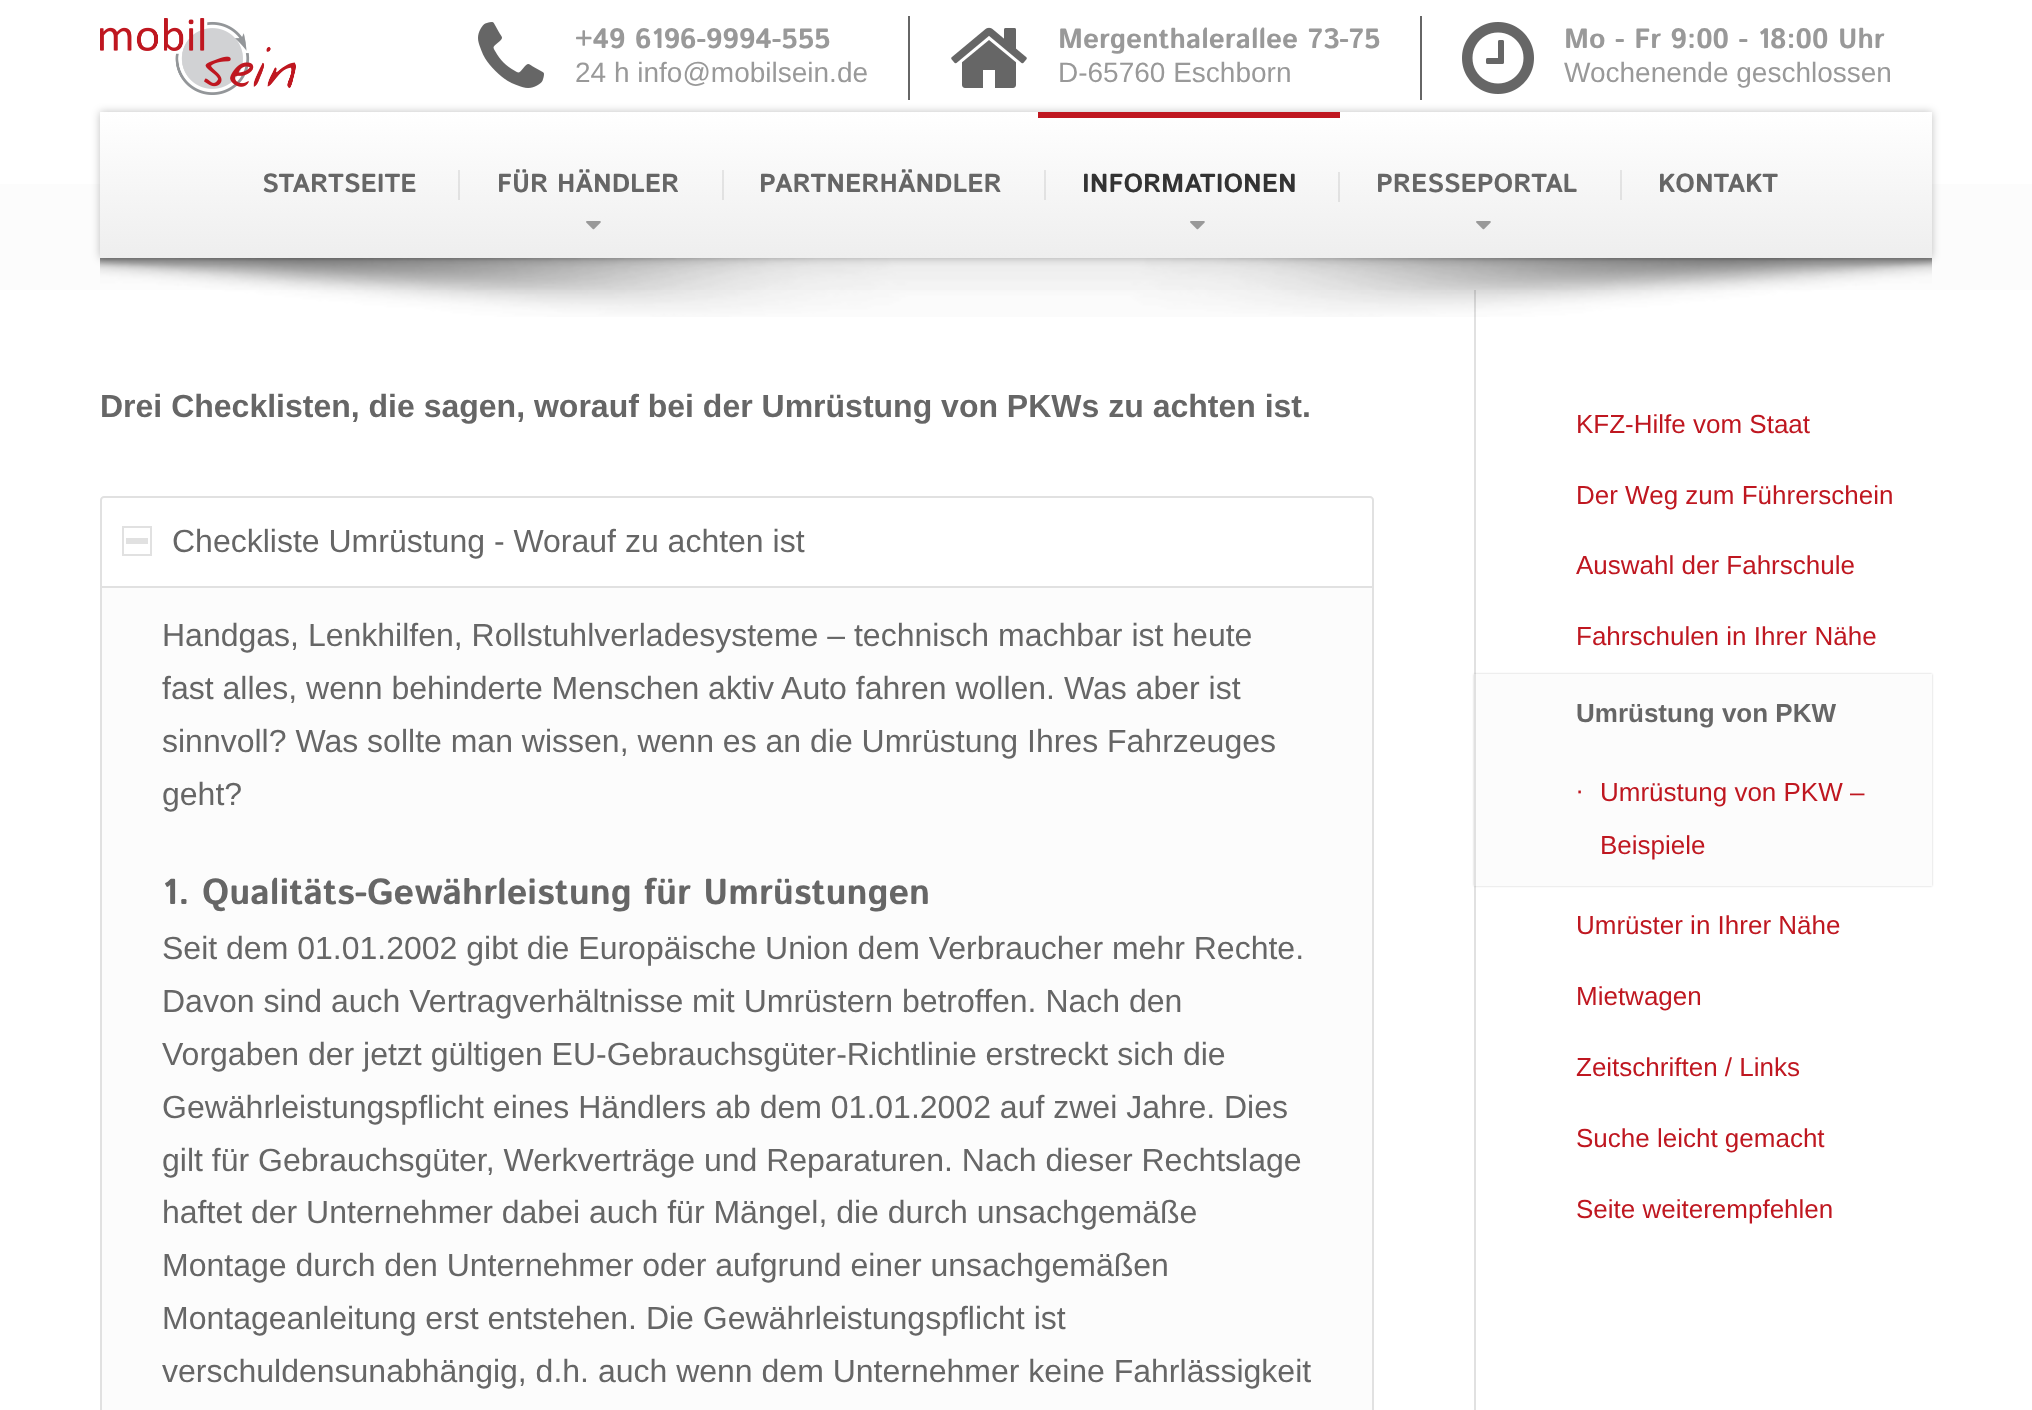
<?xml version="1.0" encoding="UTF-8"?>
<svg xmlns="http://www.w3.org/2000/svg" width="2032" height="1410">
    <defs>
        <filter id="blur1" x="-50%" y="-200%" width="200%" height="500%"><feGaussianBlur stdDeviation="4"/></filter>
        <linearGradient id="g1" gradientUnits="userSpaceOnUse" x1="1016" y1="112" x2="1016" y2="258"><stop offset="0" stop-color="#FFFFFF"/><stop offset="1" stop-color="#EEEEEE"/></linearGradient>
        <clipPath id="clip1"><path d="M 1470 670 H 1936 V 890 H 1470 Z M 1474 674 H 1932 V 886 H 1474 Z" clip-rule="evenodd"/></clipPath>
        <filter id="blur2" x="-50%" y="-200%" width="200%" height="500%"><feGaussianBlur stdDeviation="1"/></filter>
    </defs>
    <rect width="100%" height="100%" fill="#FFFFFF"/>
    <image x="100" y="18" width="196" height="77" href="img_01.png"/>
    <image x="478" y="22" width="66" height="66" href="img_02.png"/>
    <text x="575" y="48" font-family="Istok Web" font-size="28" font-weight="700" fill="#999999">+49 6196-9994-555</text>
    <text x="575" y="82" font-family="Liberation Sans" font-size="28" fill="#999999">24 h info@mobilsein.de</text>
    <rect x="908" y="16" width="2" height="84" fill="#666666"/>
    <image x="951" y="27" width="76" height="61" href="img_03.png"/>
    <text x="1058" y="48" font-family="Istok Web" font-size="28" font-weight="700" fill="#999999">Mergenthalerallee 73-75</text>
    <text x="1058" y="82" font-family="Liberation Sans" font-size="28" fill="#999999">D-65760 Eschborn</text>
    <rect x="1420" y="16" width="2" height="84" fill="#666666"/>
    <image x="1462" y="22" width="72" height="72" href="img_04.png"/>
    <text x="1564" y="48" font-family="Istok Web" font-size="28" font-weight="700" fill="#999999">Mo - Fr 9:00 - 18:00 Uhr</text>
    <text x="1564" y="82" font-family="Liberation Sans" font-size="28" fill="#999999">Wochenende geschlossen</text>
    <rect x="0" y="184" width="2032" height="106" fill="#FCFCFC"/>
    <rect x="100" y="112" width="1832" height="146" fill="#000000" fill-opacity="0.25" filter="url(#blur1)"/>
    <rect x="100" y="112" width="1832" height="146" fill="url(#g1)"/>
    <text x="262" y="192" font-family="Istok Web" font-size="26" font-weight="700" fill="#666666">STARTSEITE</text>
    <rect x="458" y="170" width="2" height="30" fill="#000000" fill-opacity="0.08"/>
    <text x="497" y="192" font-family="Istok Web" font-size="26" font-weight="700" fill="#666666">FÜR HÄNDLER</text>
    <rect x="722" y="170" width="2" height="30" fill="#000000" fill-opacity="0.08"/>
    <image x="586" y="221" width="15" height="9" href="img_05.png"/>
    <text x="759" y="192" font-family="Istok Web" font-size="26" font-weight="700" fill="#666666">PARTNERHÄNDLER</text>
    <rect x="1044" y="170" width="2" height="30" fill="#000000" fill-opacity="0.08"/>
    <rect x="1038" y="112" width="302" height="6" fill="#BF1720"/>
    <text x="1082" y="192" font-family="Istok Web" font-size="26" font-weight="700" fill="#333333">INFORMATIONEN</text>
    <rect x="1338" y="172" width="2" height="30" fill="#000000" fill-opacity="0.08"/>
    <image x="1190" y="221" width="15" height="9" href="img_05.png"/>
    <text x="1376" y="192" font-family="Istok Web" font-size="26" font-weight="700" fill="#666666">PRESSEPORTAL</text>
    <rect x="1620" y="170" width="2" height="30" fill="#000000" fill-opacity="0.08"/>
    <image x="1476" y="221" width="15" height="9" href="img_05.png"/>
    <text x="1658" y="192" font-family="Istok Web" font-size="26" font-weight="700" fill="#666666">KONTAKT</text>
    <rect x="1474" y="290" width="2" height="1120" fill="#E1E1E1"/>
    <image x="100" y="258" width="1832" height="59" href="img_06.png"/>
    <text x="100" y="417" font-family="Liberation Sans" font-size="32" font-weight="700" fill="#666666">Drei Checklisten, die sagen, worauf bei der Umrüstung von PKWs zu achten ist.</text>
    <rect x="1372" y="586" width="2" height="824" fill="#E1E1E1"/>
    <rect x="100" y="586" width="2" height="824" fill="#E1E1E1"/>
    <path d="M 104 497 H 1370 C 1371.5 497 1373 498.5 1373 500 V 587 H 101 V 500 C 101 498.5 102.5 497 104 497 Z" fill="#FFFFFF" stroke="#E1E1E1" stroke-width="2"/>
    <rect x="123" y="527" width="28" height="28" fill="none" stroke="#E1E1E1" stroke-width="2"/>
    <rect x="126" y="538" width="22" height="6" fill="#E1E1E1"/>
    <text x="172" y="552" font-family="Liberation Sans" font-size="32" fill="#666666">Checkliste Umrüstung - Worauf zu achten ist</text>
    <rect x="102" y="588" width="1270" height="822" fill="#FCFCFC"/>
    <text font-family="Liberation Sans" font-size="32" fill="#666666">
        <tspan x="162" y="646">Handgas, Lenkhilfen, Rollstuhlverladesysteme – technisch machbar ist heute</tspan>
        <tspan x="162" y="699">fast alles, wenn behinderte Menschen aktiv Auto fahren wollen. Was aber ist</tspan>
        <tspan x="162" y="752">sinnvoll? Was sollte man wissen, wenn es an die Umrüstung Ihres Fahrzeuges</tspan>
        <tspan x="162" y="805">geht?</tspan>
    </text>
    <text x="162" y="904" font-family="Istok Web" font-size="36" font-weight="700" fill="#666666">1. Qualitäts-Gewährleistung für Umrüstungen</text>
    <text font-family="Liberation Sans" font-size="32" fill="#666666">
        <tspan x="162" y="959">Seit dem 01.01.2002 gibt die Europäische Union dem Verbraucher mehr Rechte.</tspan>
        <tspan x="162" y="1012">Davon sind auch Vertragverhältnisse mit Umrüstern betroffen. Nach den</tspan>
        <tspan x="162" y="1065">Vorgaben der jetzt gültigen EU-Gebrauchsgüter-Richtlinie erstreckt sich die</tspan>
        <tspan x="162" y="1118">Gewährleistungspflicht eines Händlers ab dem 01.01.2002 auf zwei Jahre. Dies</tspan>
        <tspan x="162" y="1171">gilt für Gebrauchsgüter, Werkverträge und Reparaturen. Nach dieser Rechtslage</tspan>
        <tspan x="162" y="1223">haftet der Unternehmer dabei auch für Mängel, die durch unsachgemäße</tspan>
        <tspan x="162" y="1276">Montage durch den Unternehmer oder aufgrund einer unsachgemäßen</tspan>
        <tspan x="162" y="1329">Montageanleitung erst entstehen. Die Gewährleistungspflicht ist</tspan>
        <tspan x="162" y="1382">verschuldensunabhängig, d.h. auch wenn dem Unternehmer keine Fahrlässigkeit</tspan>
    </text>
    <text x="1576" y="433" font-family="Liberation Sans" font-size="26" fill="#BF1720">KFZ-Hilfe vom Staat</text>
    <text x="1576" y="504" font-family="Liberation Sans" font-size="26" fill="#BF1720">Der Weg zum Führerschein</text>
    <text x="1576" y="574" font-family="Liberation Sans" font-size="26" fill="#BF1720">Auswahl der Fahrschule</text>
    <text x="1576" y="645" font-family="Liberation Sans" font-size="26" fill="#BF1720">Fahrschulen in Ihrer Nähe</text>
    <g clip-path="url(#clip1)">
        <rect x="1474" y="674" width="458" height="212" fill="#000000" fill-opacity="0.2" filter="url(#blur2)"/>
    </g>
    <rect x="1476" y="674" width="456" height="212" fill="#FCFCFC"/>
    <text x="1576" y="722" font-family="Liberation Sans" font-size="26" font-weight="700" fill="#666666">Umrüstung von PKW</text>
    <text x="1576" y="799" font-family="Liberation Sans" font-size="26" fill="#BF1720">∙</text>
    <text x="1600" y="801" font-family="Liberation Sans" font-size="26" fill="#BF1720">Umrüstung von PKW –</text>
    <text x="1600" y="854" font-family="Liberation Sans" font-size="26" fill="#BF1720">Beispiele</text>
    <text x="1576" y="934" font-family="Liberation Sans" font-size="26" fill="#BF1720">Umrüster in Ihrer Nähe</text>
    <text x="1576" y="1005" font-family="Liberation Sans" font-size="26" fill="#BF1720">Mietwagen</text>
    <text x="1576" y="1076" font-family="Liberation Sans" font-size="26" fill="#BF1720">Zeitschriften / Links</text>
    <text x="1576" y="1147" font-family="Liberation Sans" font-size="26" fill="#BF1720">Suche leicht gemacht</text>
    <text x="1576" y="1218" font-family="Liberation Sans" font-size="26" fill="#BF1720">Seite weiterempfehlen</text>
</svg>
